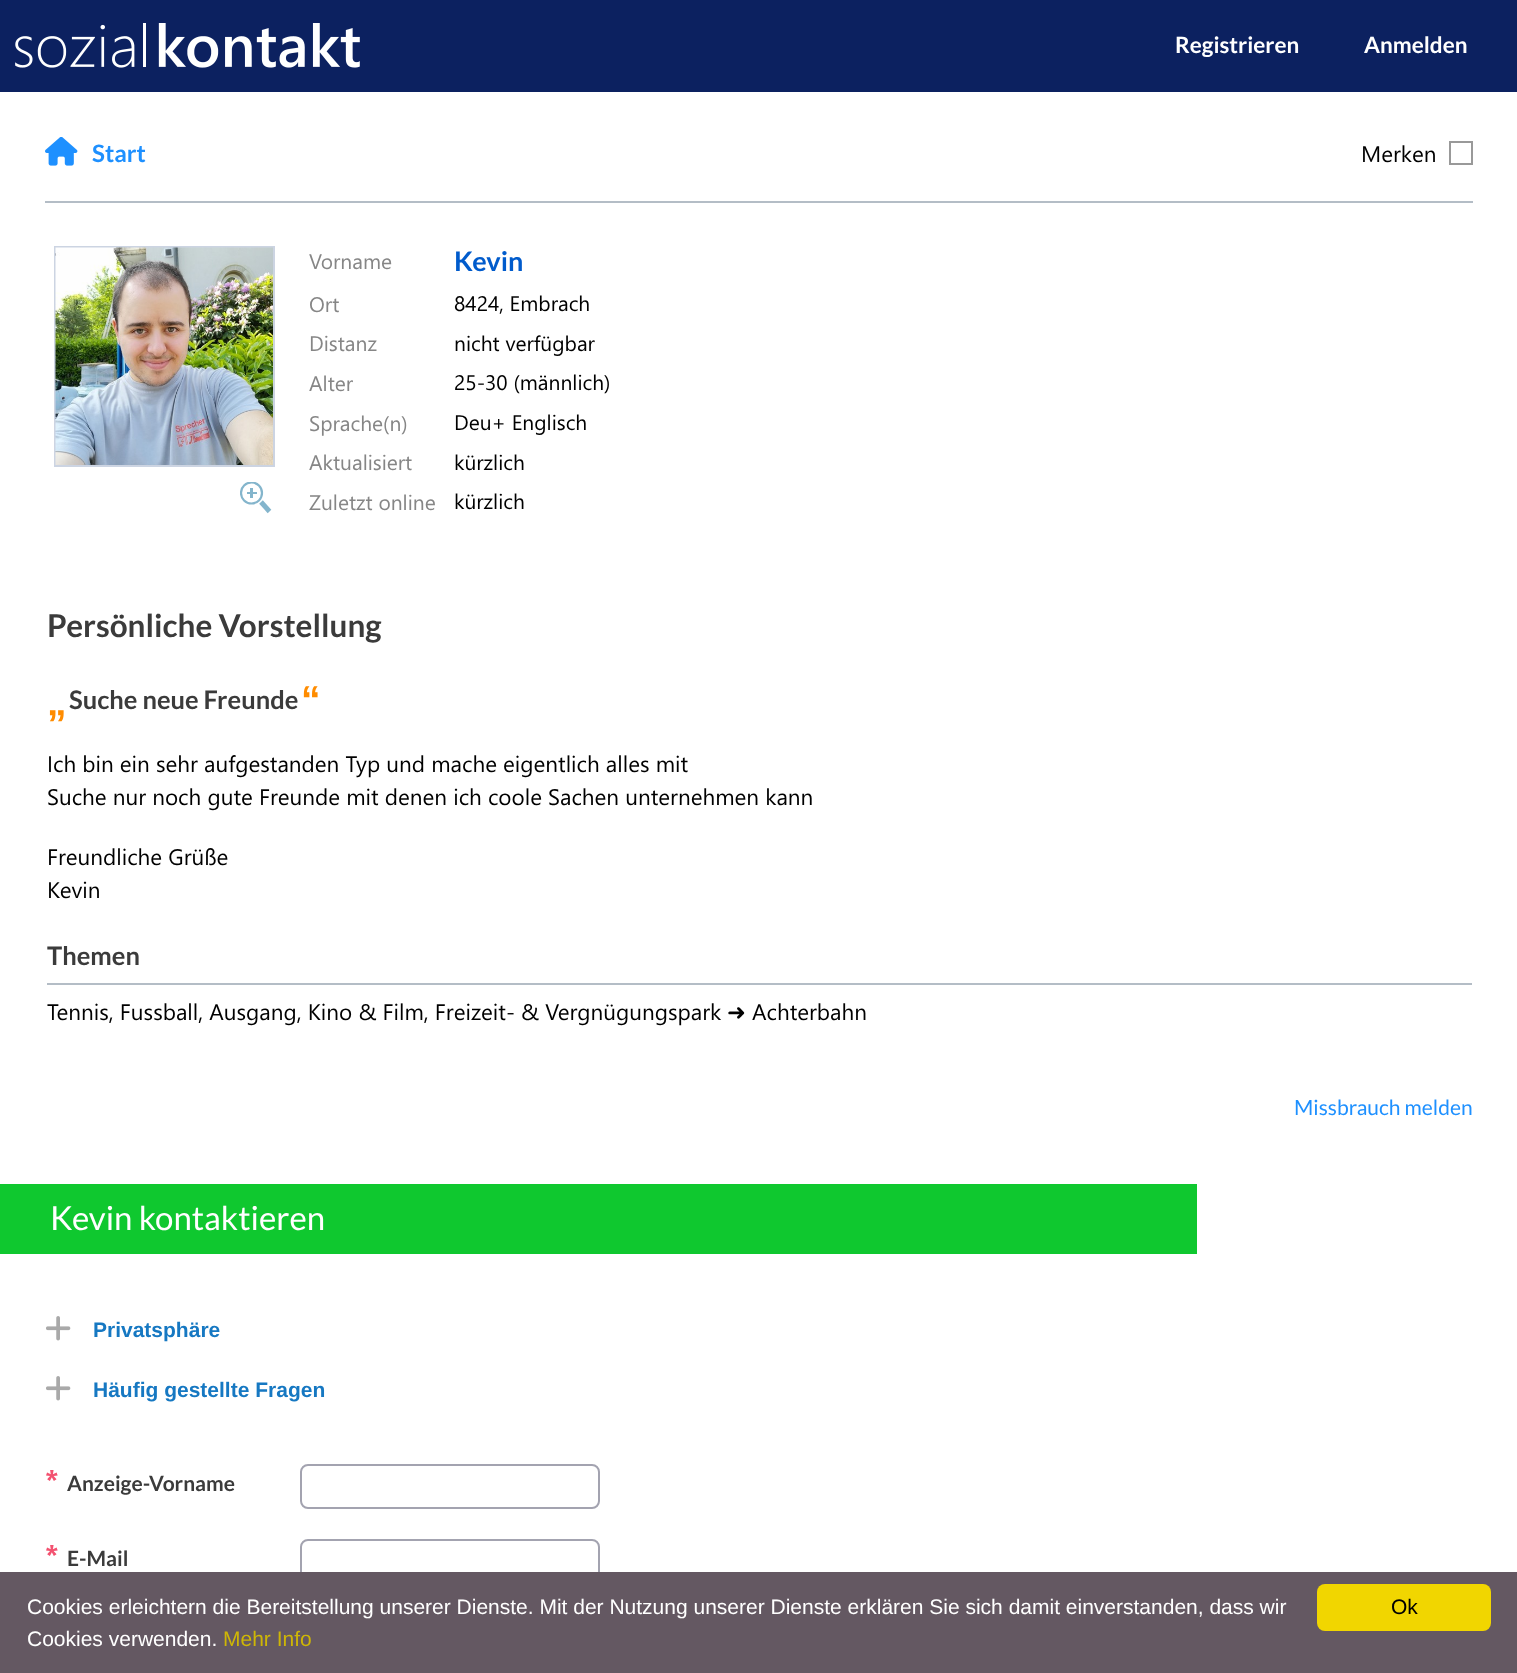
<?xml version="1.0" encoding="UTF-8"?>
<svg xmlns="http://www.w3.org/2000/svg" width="1517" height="1673">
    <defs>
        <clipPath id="clip1"><rect x="240" y="482" width="32" height="31"/></clipPath>
    </defs>
    <rect width="100%" height="100%" fill="#0C2160"/>
    <image x="15" y="23" width="345" height="45" href="img_01.png"/>
    <text x="1175" y="53" font-family="Lato" font-size="22.5" font-weight="700" fill="#FFFFFF">Registrieren</text>
    <text x="1364" y="53" font-family="Lato" font-size="22.5" font-weight="700" fill="#FFFFFF">Anmelden</text>
    <rect x="0" y="92" width="1517" height="1480" fill="#FFFFFF"/>
    <image x="45" y="137" width="33" height="29" href="img_02.png"/>
    <text x="92" y="162" font-family="Lato" font-size="24" font-weight="700" fill="#1E90FF">Start</text>
    <text x="1361" y="162" font-family="Segoe UI" font-size="22.5" fill="#000000">Merken</text>
    <rect x="1450" y="142" width="22" height="22" fill="none" stroke="#999999" stroke-width="2"/>
    <rect x="45" y="201" width="1428" height="2" fill="#B4BDC6"/>
    <rect x="55" y="247" width="219" height="219" fill="none" stroke="#CCD4E2" stroke-width="2"/>
    <image x="55" y="247" width="218" height="218" href="img_03.png"/>
    <g clip-path="url(#clip1)">
        <circle cx="251.5" cy="493" r="10.5" fill="none" stroke="#84B5CC" stroke-width="2.2"/>
    </g>
    <rect x="250" y="488" width="3" height="10" fill="#84B5CC"/>
    <rect x="247" y="492" width="10" height="2" fill="#84B5CC"/>
    <path d="M 261 502 L 269.5 511.5" fill="none" stroke="#84B5CC" stroke-width="4.9"/>
    <text x="309" y="269" font-family="Segoe UI" font-size="21" fill="#868686">Vorname</text>
    <text x="454" y="271" font-family="Lato" font-size="27" font-weight="700" fill="#005BCC">Kevin</text>
    <text x="309" y="312" font-family="Segoe UI" font-size="21" fill="#868686">Ort</text>
    <text x="454" y="311" font-family="Segoe UI" font-size="21" fill="#000000">8424, Embrach</text>
    <text x="309" y="351" font-family="Segoe UI" font-size="21" fill="#868686">Distanz</text>
    <text x="454" y="351" font-family="Segoe UI" font-size="21" fill="#000000">nicht verfügbar</text>
    <text x="309" y="391" font-family="Segoe UI" font-size="21" fill="#868686">Alter</text>
    <text x="454" y="390" font-family="Segoe UI" font-size="21" fill="#000000">25-30 (männlich)</text>
    <text x="309" y="431" font-family="Segoe UI" font-size="21" fill="#868686">Sprache(n)</text>
    <text x="454" y="430" font-family="Segoe UI" font-size="21" fill="#000000">Deu+ Englisch</text>
    <text x="309" y="470" font-family="Segoe UI" font-size="21" fill="#868686">Aktualisiert</text>
    <text x="454" y="470" font-family="Segoe UI" font-size="21" fill="#000000">kürzlich</text>
    <text x="309" y="510" font-family="Segoe UI" font-size="21" fill="#868686">Zuletzt online</text>
    <text x="454" y="509" font-family="Segoe UI" font-size="21" fill="#000000">kürzlich</text>
    <text x="47" y="637" font-family="Lato" font-size="31.5" font-weight="700" fill="#3B3B3B">Persönliche Vorstellung</text>
    <text x="69" y="709" font-family="Lato" font-size="25.5" font-weight="700" fill="#3B3B3B">Suche neue Freunde</text>
    <text x="301" y="713" font-family="Liberation Sans" font-size="39" font-weight="700" fill="#FF8C00">“</text>
    <text x="47" y="737" font-family="Liberation Sans" font-size="39" font-weight="700" fill="#FF8C00">”</text>
    <text font-family="Segoe UI" font-size="22.5" fill="#000000">
        <tspan x="47" y="772">Ich bin ein sehr aufgestanden Typ und mache eigentlich alles mit</tspan>
        <tspan x="47" y="805">Suche nur noch gute Freunde mit denen ich coole Sachen unternehmen kann</tspan>
    </text>
    <text font-family="Segoe UI" font-size="22.5" fill="#000000">
        <tspan x="47" y="865">Freundliche Grüße</tspan>
        <tspan x="47" y="898">Kevin</tspan>
    </text>
    <text x="47" y="965" font-family="Lato" font-size="25.5" font-weight="700" fill="#3B3B3B">Themen</text>
    <rect x="47" y="983" width="1425" height="2" fill="#B4BDC6"/>
    <text x="47" y="1020" font-family="Segoe UI" font-size="22.5" fill="#000000">Tennis, Fussball, Ausgang, Kino &amp; Film, Freizeit- &amp; Vergnügungspark</text>
    <text x="727" y="1020" font-family="DejaVu Sans" font-size="22.5" fill="#000000">➜</text>
    <text x="752" y="1020" font-family="Segoe UI" font-size="22.5" fill="#000000">Achterbahn</text>
    <text x="1294" y="1115" font-family="Lato" font-size="21" fill="#1E90FF">Missbrauch melden</text>
    <rect x="0" y="1184" width="1197" height="70" fill="#0FC82F"/>
    <text x="50" y="1230" font-family="Lato" font-size="33" fill="#FFFFFF">Kevin kontaktieren</text>
    <image x="46" y="1316" width="25" height="25" href="img_04.png"/>
    <text x="93" y="1337" font-family="Liberation Sans" font-size="21" font-weight="700" fill="#1678C2">Privatsphäre</text>
    <image x="46" y="1376" width="25" height="25" href="img_04.png"/>
    <text x="93" y="1397" font-family="Liberation Sans" font-size="21" font-weight="700" fill="#1678C2">Häufig gestellte Fragen</text>
    <text x="45" y="1491" font-family="Segoe UI" font-size="30" font-weight="700" fill="#F35270">*</text>
    <text x="67" y="1491" font-family="Lato" font-size="21" font-weight="700" fill="#3B3B3B">Anzeige-Vorname</text>
    <rect x="301" y="1465" width="298" height="43" rx="7" fill="none" stroke="#A3A3B0" stroke-width="2"/>
    <text x="45" y="1566" font-family="Segoe UI" font-size="30" font-weight="700" fill="#F35270">*</text>
    <text x="67" y="1566" font-family="Lato" font-size="21" font-weight="700" fill="#3B3B3B">E-Mail</text>
    <rect x="301" y="1540" width="298" height="43" rx="7" fill="none" stroke="#A3A3B0" stroke-width="2"/>
    <rect x="0" y="1572" width="1517" height="101" fill="#645862"/>
    <text font-family="Liberation Sans" font-size="21" fill="#FFFFFF">
        <tspan x="27" y="1614">Cookies erleichtern die Bereitstellung unserer Dienste. Mit der Nutzung unserer Dienste erklären Sie sich damit einverstanden, dass wir</tspan>
        <tspan x="27" y="1646">Cookies verwenden.</tspan>
    </text>
    <text x="223" y="1646" font-family="Liberation Sans" font-size="21" fill="#CEB606">Mehr Info</text>
    <rect x="1317" y="1584" width="174" height="47" rx="8" fill="#F1D600"/>
    <text x="1391" y="1614" font-family="Liberation Sans" font-size="21" fill="#000000">Ok</text>
</svg>
